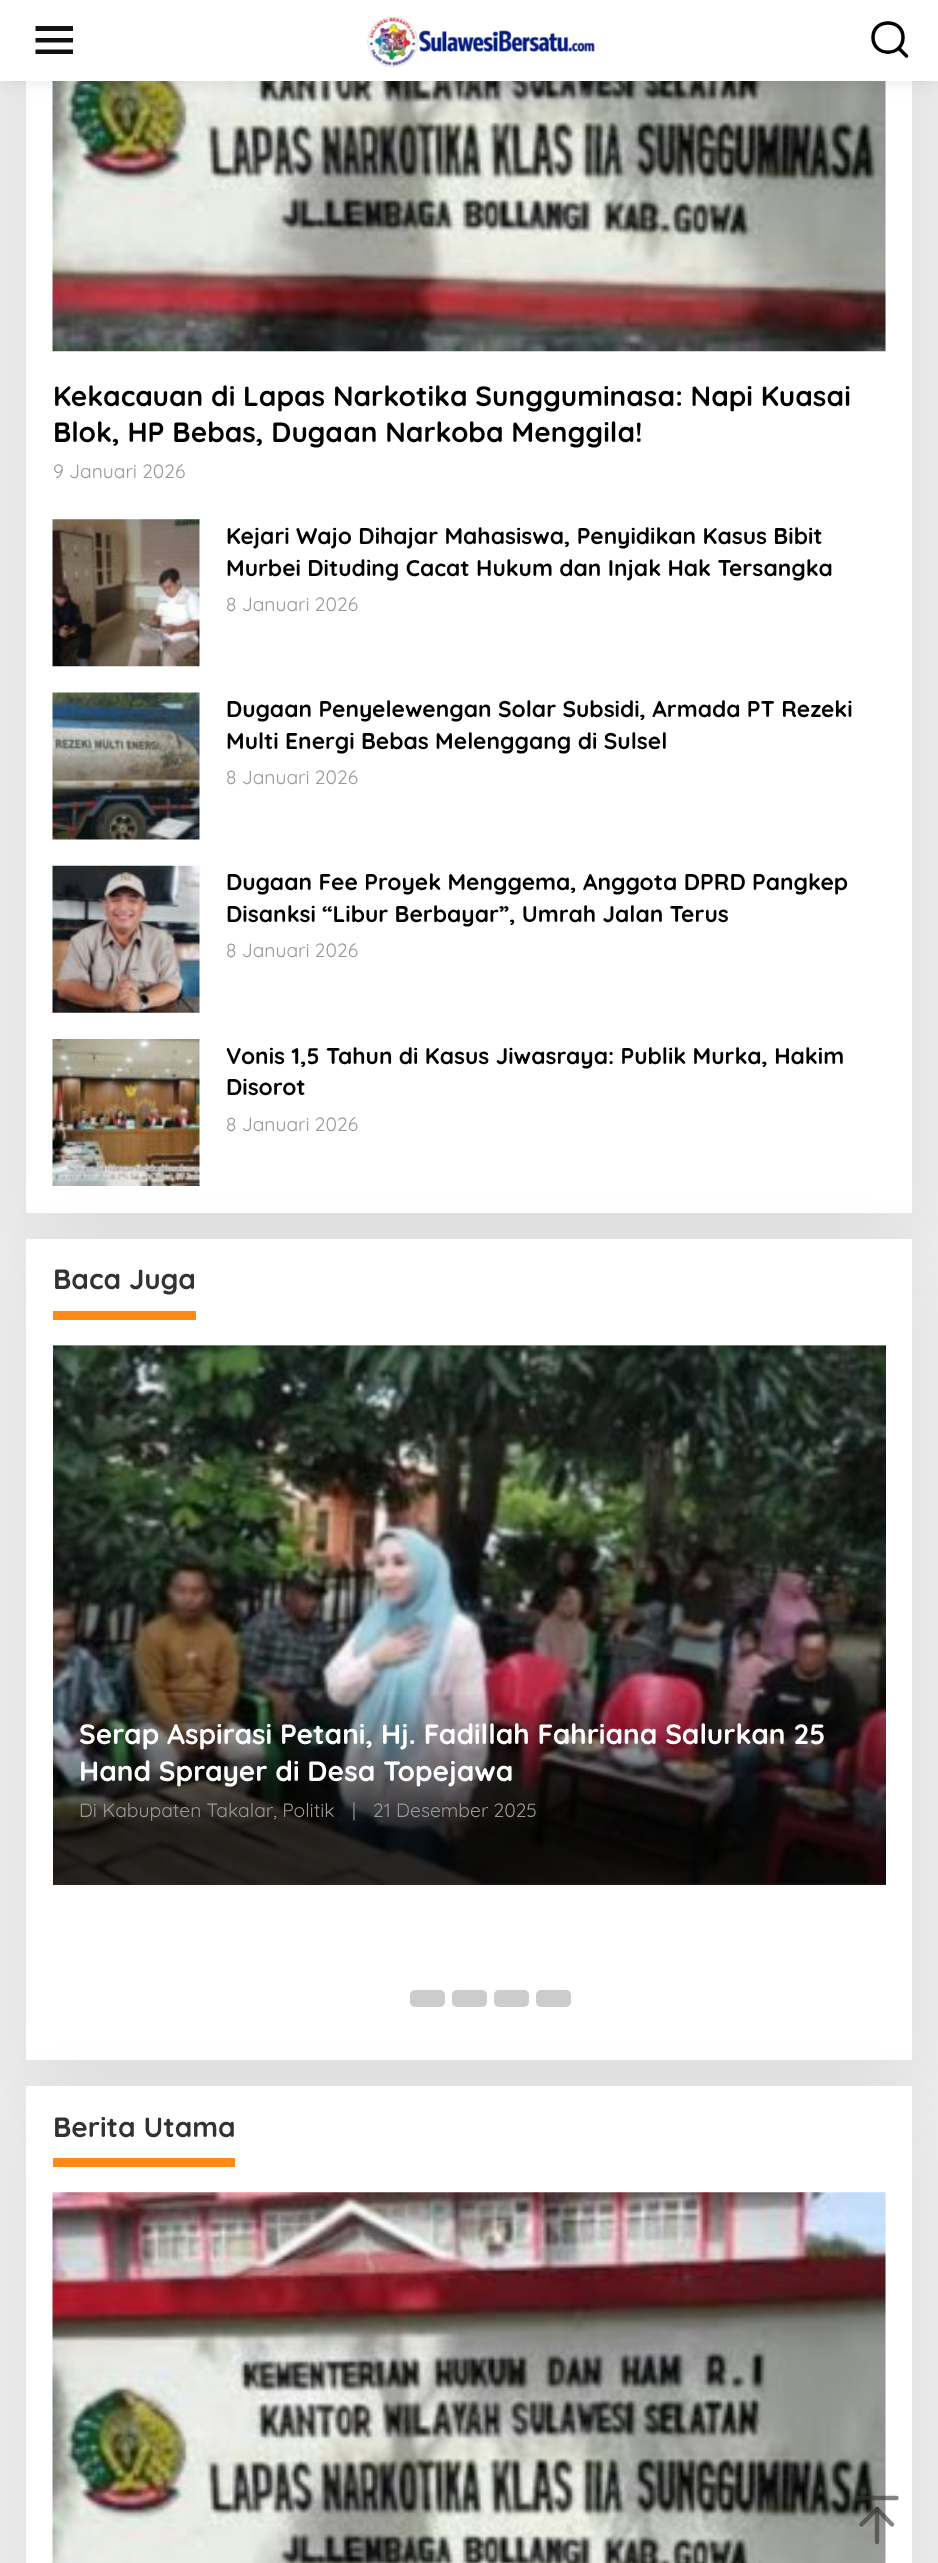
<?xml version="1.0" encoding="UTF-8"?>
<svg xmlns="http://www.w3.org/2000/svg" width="938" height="2563">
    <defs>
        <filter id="blur1" x="-50%" y="-200%" width="200%" height="500%"><feGaussianBlur stdDeviation="39.5"/></filter>
        <filter id="blur2" x="-50%" y="-200%" width="200%" height="500%"><feGaussianBlur stdDeviation="9"/></filter>
        <linearGradient id="g1" gradientUnits="userSpaceOnUse" x1="469" y1="1691" x2="469" y2="1885"><stop offset="0" stop-color="#000000" stop-opacity="0"/><stop offset="0.7" stop-color="#000000" stop-opacity="0.8"/></linearGradient>
    </defs>
    <rect width="100%" height="100%" fill="#EEEEEE"/>
    <rect x="26" y="-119" width="886" height="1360" fill="#000000" fill-opacity="0.07" filter="url(#blur1)"/>
    <rect x="26" y="81" width="886" height="1132" fill="#FFFFFF"/>
    <image x="52" y="81" width="834" height="271" href="img_02.png"/>
    <rect x="0" y="0" width="938" height="81" fill="#000000" fill-opacity="0.1" filter="url(#blur2)"/>
    <rect x="0" y="0" width="938" height="81" fill="#FFFFFF"/>
    <path d="M 35.5 26 H 73 V 31 H 35.5 Z M 35.5 38 H 73 V 42.5 H 35.5 Z M 35.5 49.5 H 73 V 54 H 35.5 Z" fill="#111111"/>
    <image x="367" y="17" width="228" height="51" href="img_01.png"/>
    <path d="M 906.5 56 L 898.5 48 M 903 37.5 C 903 57 873 57 873 37.5 C 873 18 903 18 903 37.5 Z" fill="none" stroke="#000000" stroke-width="3.5" stroke-linecap="round"/>
    <text font-family="Quicksand" font-size="28" font-weight="700" fill="#000000">
        <tspan x="53" y="406">Kekacauan di Lapas Narkotika Sungguminasa: Napi Kuasai</tspan>
        <tspan x="53" y="442">Blok, HP Bebas, Dugaan Narkoba Menggila!</tspan>
    </text>
    <text x="53" y="478" font-family="Quicksand" font-size="19.25" fill="#999999">9 Januari 2026</text>
    <image x="52" y="519" width="148" height="148" href="img_03.png"/>
    <text font-family="Quicksand" font-size="22.75" font-weight="700" fill="#000000">
        <tspan x="226" y="544">Kejari Wajo Dihajar Mahasiswa, Penyidikan Kasus Bibit</tspan>
        <tspan x="226" y="576">Murbei Dituding Cacat Hukum dan Injak Hak Tersangka</tspan>
    </text>
    <text x="226" y="611" font-family="Quicksand" font-size="19.25" fill="#999999">8 Januari 2026</text>
    <image x="52" y="692" width="148" height="148" href="img_04.png"/>
    <text font-family="Quicksand" font-size="22.75" font-weight="700" fill="#000000">
        <tspan x="226" y="717">Dugaan Penyelewengan Solar Subsidi, Armada PT Rezeki</tspan>
        <tspan x="226" y="749">Multi Energi Bebas Melenggang di Sulsel</tspan>
    </text>
    <text x="226" y="784" font-family="Quicksand" font-size="19.25" fill="#999999">8 Januari 2026</text>
    <image x="52" y="865" width="148" height="148" href="img_05.png"/>
    <text font-family="Quicksand" font-size="22.75" font-weight="700" fill="#000000">
        <tspan x="226" y="890">Dugaan Fee Proyek Menggema, Anggota DPRD Pangkep</tspan>
        <tspan x="226" y="922">Disanksi “Libur Berbayar”, Umrah Jalan Terus</tspan>
    </text>
    <text x="226" y="957" font-family="Quicksand" font-size="19.25" fill="#999999">8 Januari 2026</text>
    <rect x="26" y="1267" width="886" height="821" fill="#000000" fill-opacity="0.07" filter="url(#blur1)"/>
    <image x="52" y="1039" width="148" height="147" href="img_06.png"/>
    <text font-family="Quicksand" font-size="22.75" font-weight="700" fill="#000000">
        <tspan x="226" y="1064">Vonis 1,5 Tahun di Kasus Jiwasraya: Publik Murka, Hakim</tspan>
        <tspan x="226" y="1095">Disorot</tspan>
    </text>
    <text x="226" y="1131" font-family="Quicksand" font-size="19.25" fill="#999999">8 Januari 2026</text>
    <rect x="26" y="1239" width="886" height="821" fill="#FFFFFF"/>
    <rect x="53" y="1311" width="143" height="9" fill="#FE8917"/>
    <text x="53" y="1289" font-family="Quicksand" font-size="28" font-weight="700" fill="#323233">Baca Juga</text>
    <image x="53" y="1345" width="833" height="540" href="img_07.png"/>
    <rect x="53" y="1695" width="833" height="190" fill="url(#g1)"/>
    <text font-family="Quicksand" font-size="28" font-weight="700" fill="#FFFFFF">
        <tspan x="79" y="1744">Serap Aspirasi Petani, Hj. Fadillah Fahriana Salurkan 25</tspan>
        <tspan x="79" y="1781">Hand Sprayer di Desa Topejawa</tspan>
    </text>
    <text x="79" y="1817" font-family="Quicksand" font-size="19.25" fill="#999999">Di Kabupaten Takalar, Politik</text>
    <text x="352" y="1817" font-family="Quicksand" font-size="19.25" fill="#999999">|</text>
    <text x="373" y="1817" font-family="Quicksand" font-size="19.25" fill="#999999">21 Desember 2025</text>
    <rect x="26" y="2114" width="886" height="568" fill="#000000" fill-opacity="0.07" filter="url(#blur1)"/>
    <rect x="410" y="1990" width="35" height="17" rx="5" fill="#CCCCCC"/>
    <rect x="452" y="1990" width="35" height="17" rx="5" fill="#CCCCCC"/>
    <rect x="494" y="1990" width="35" height="17" rx="5" fill="#CCCCCC"/>
    <rect x="536" y="1990" width="35" height="17" rx="5" fill="#CCCCCC"/>
    <rect x="26" y="2086" width="886" height="477" fill="#FFFFFF"/>
    <rect x="53" y="2158" width="182" height="9" fill="#FE8917"/>
    <text x="53" y="2137" font-family="Quicksand" font-size="28" font-weight="700" fill="#323233">Berita Utama</text>
    <image x="52" y="2192" width="834" height="371" href="img_08.png"/>
    <path d="M 877 2542 V 2509" fill="none" stroke="#323233" stroke-opacity="0.6" stroke-width="4.4" stroke-linecap="round" stroke-linejoin="round"/>
    <path d="M 861.5 2524.5 L 877 2509 L 892 2524.5 M 857 2498 H 896.5" fill="none" stroke="#323233" stroke-opacity="0.6" stroke-width="4.4" stroke-linecap="round" stroke-linejoin="round"/>
</svg>
